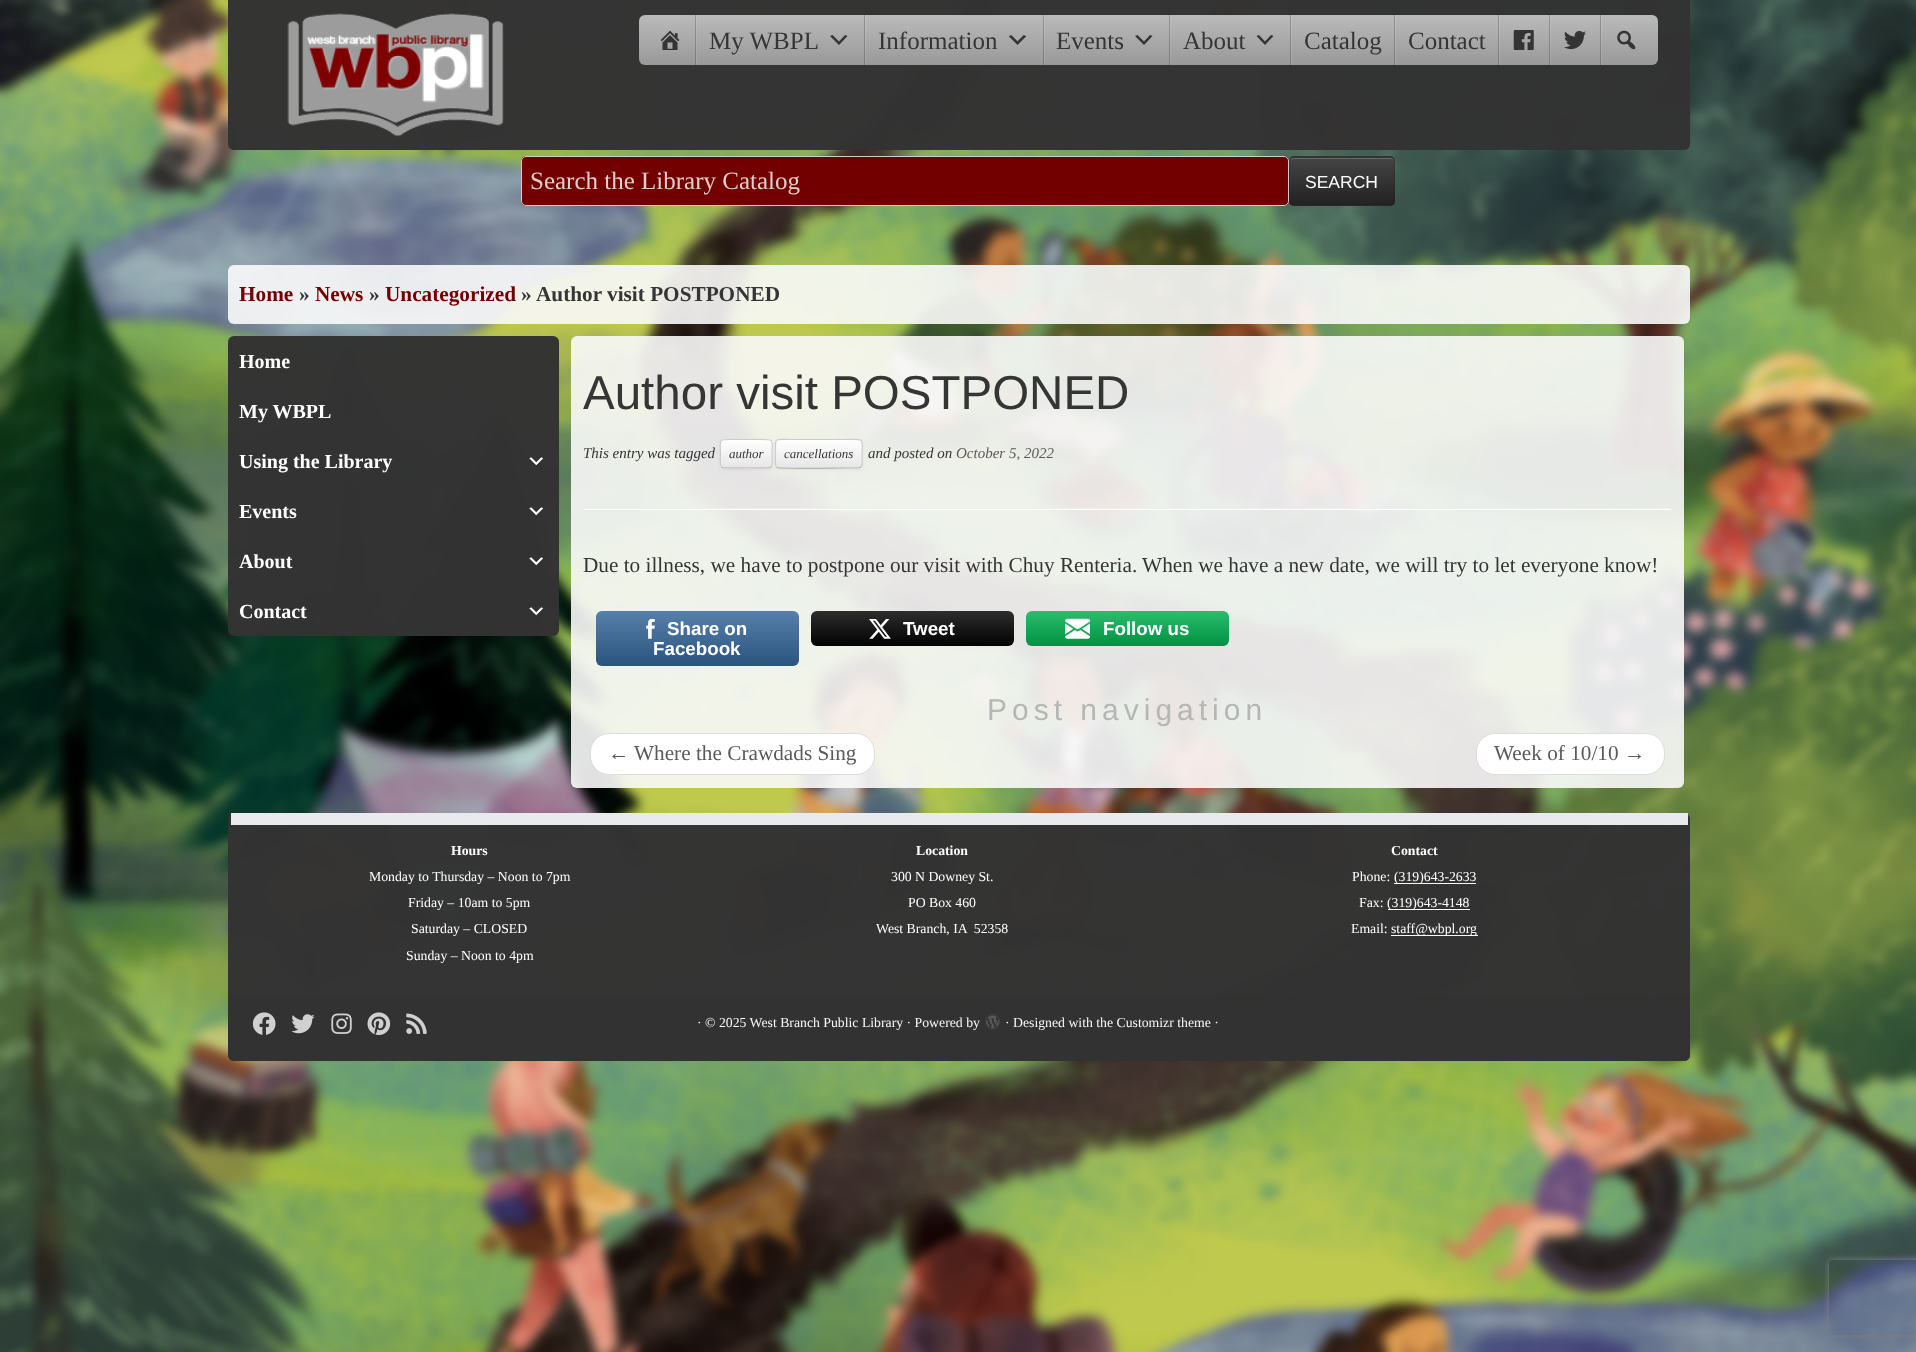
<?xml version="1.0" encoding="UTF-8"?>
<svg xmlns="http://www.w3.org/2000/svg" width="1916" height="1352">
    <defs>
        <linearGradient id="g1" gradientUnits="userSpaceOnUse" x1="1148" y1="15" x2="1148" y2="65"><stop offset="0" stop-color="#BABABA"/><stop offset="1" stop-color="#999999"/></linearGradient>
        <clipPath id="clip1"><rect x="1289" y="156" width="106" height="50" rx="5"/></clipPath>
        <linearGradient id="g2" gradientUnits="userSpaceOnUse" x1="1342" y1="158" x2="1342" y2="205"><stop offset="0" stop-color="#444444"/><stop offset="1" stop-color="#222222"/></linearGradient>
        <filter id="blur1" x="-50%" y="-200%" width="200%" height="500%"><feGaussianBlur stdDeviation="1"/></filter>
        <clipPath id="clip2"><rect x="720" y="439" width="53" height="30" rx="4"/></clipPath>
        <linearGradient id="g3" gradientUnits="userSpaceOnUse" x1="746" y1="440" x2="746" y2="468"><stop offset="0" stop-color="#FFFFFF"/><stop offset="1" stop-color="#E6E6E6"/></linearGradient>
        <clipPath id="clip3"><rect x="775" y="439" width="88" height="30" rx="4"/></clipPath>
        <linearGradient id="g4" gradientUnits="userSpaceOnUse" x1="819" y1="440" x2="819" y2="468"><stop offset="0" stop-color="#FFFFFF"/><stop offset="1" stop-color="#E6E6E6"/></linearGradient>
        <linearGradient id="g5" gradientUnits="userSpaceOnUse" x1="698" y1="666" x2="698" y2="611"><stop offset="0" stop-color="#000000" stop-opacity="0.17"/><stop offset="1" stop-color="#FFFFFF" stop-opacity="0.17"/></linearGradient>
        <linearGradient id="g6" gradientUnits="userSpaceOnUse" x1="913" y1="646" x2="913" y2="611"><stop offset="0" stop-color="#000000" stop-opacity="0.17"/><stop offset="1" stop-color="#FFFFFF" stop-opacity="0.17"/></linearGradient>
        <linearGradient id="g7" gradientUnits="userSpaceOnUse" x1="1128" y1="646" x2="1128" y2="611"><stop offset="0" stop-color="#000000" stop-opacity="0.17"/><stop offset="1" stop-color="#FFFFFF" stop-opacity="0.17"/></linearGradient>
        <clipPath id="clip4"><path d="M 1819 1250 H 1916 V 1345 H 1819 Z M 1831.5 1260 H 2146.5 C 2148 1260 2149 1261 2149 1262.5 V 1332.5 C 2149 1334 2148 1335 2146.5 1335 H 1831.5 C 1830 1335 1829 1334 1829 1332.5 V 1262.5 C 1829 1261 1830 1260 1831.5 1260 Z" clip-rule="evenodd"/></clipPath>
        <filter id="blur2" x="-50%" y="-200%" width="200%" height="500%"><feGaussianBlur stdDeviation="3"/></filter>
    </defs>
    <rect width="100%" height="100%" fill="#FFFFFF"/>
    <image x="0" y="0" width="1916" height="1352" href="img_01.png"/>
    <path d="M 228 0 H 1690 V 144 C 1690 147.5 1687.5 150 1684 150 H 234 C 230.5 150 228 147.5 228 144 Z" fill="#333333" fill-opacity="0.99"/>
    <image x="287" y="13" width="217" height="124" href="img_02.png"/>
    <rect x="639" y="15" width="1019" height="50" rx="6" fill="url(#g1)"/>
    <image x="660" y="30" width="20" height="20" href="img_03.png"/>
    <rect x="696" y="15" width="1" height="50" fill="#FFFFFF" fill-opacity="0.1"/>
    <rect x="695" y="15" width="1" height="50" fill="#000000" fill-opacity="0.2"/>
    <text x="709" y="49" font-family="Liberation Serif" font-size="25" fill="#353535">My WBPL</text>
    <path d="M 832.5 35 L 839 41.5 L 845 35 L 847.5 36 L 839 45 L 830 36 Z" fill="#333333" fill-opacity="0.99"/>
    <rect x="865" y="15" width="1" height="50" fill="#FFFFFF" fill-opacity="0.1"/>
    <rect x="864" y="15" width="1" height="50" fill="#000000" fill-opacity="0.2"/>
    <text x="878" y="49" font-family="Liberation Serif" font-size="25" fill="#353535">Information</text>
    <image x="1008" y="35" width="19" height="10" href="img_04.png"/>
    <rect x="1044" y="15" width="1" height="50" fill="#FFFFFF" fill-opacity="0.1"/>
    <rect x="1043" y="15" width="1" height="50" fill="#000000" fill-opacity="0.2"/>
    <text x="1056" y="49" font-family="Liberation Serif" font-size="25" fill="#353535">Events</text>
    <path d="M 1137.5 35 L 1144 41.5 L 1150 35 L 1152.5 36 L 1144 45 L 1135 36 Z" fill="#333333" fill-opacity="0.99"/>
    <rect x="1170" y="15" width="1" height="50" fill="#FFFFFF" fill-opacity="0.1"/>
    <rect x="1169" y="15" width="1" height="50" fill="#000000" fill-opacity="0.2"/>
    <text x="1183" y="49" font-family="Liberation Serif" font-size="25" fill="#353535">About</text>
    <path d="M 1259 35 L 1265 41.5 L 1271 35 L 1273.5 36 L 1265 45 L 1256.5 36 Z" fill="#333333" fill-opacity="0.99"/>
    <rect x="1291" y="15" width="1" height="50" fill="#FFFFFF" fill-opacity="0.1"/>
    <rect x="1290" y="15" width="1" height="50" fill="#000000" fill-opacity="0.2"/>
    <text x="1304" y="49" font-family="Liberation Serif" font-size="25" fill="#353535">Catalog</text>
    <rect x="1395" y="15" width="1" height="50" fill="#FFFFFF" fill-opacity="0.1"/>
    <rect x="1394" y="15" width="1" height="50" fill="#000000" fill-opacity="0.2"/>
    <text x="1408" y="49" font-family="Liberation Serif" font-size="25" fill="#353535">Contact</text>
    <rect x="1499" y="15" width="1" height="50" fill="#FFFFFF" fill-opacity="0.1"/>
    <rect x="1498" y="15" width="1" height="50" fill="#000000" fill-opacity="0.2"/>
    <image x="1513" y="30" width="21" height="20" href="img_05.png"/>
    <rect x="1550" y="15" width="1" height="50" fill="#FFFFFF" fill-opacity="0.1"/>
    <rect x="1549" y="15" width="1" height="50" fill="#000000" fill-opacity="0.2"/>
    <image x="1564" y="30" width="22" height="20" href="img_06.png"/>
    <rect x="1601" y="15" width="1" height="50" fill="#FFFFFF" fill-opacity="0.1"/>
    <rect x="1600" y="15" width="1" height="50" fill="#000000" fill-opacity="0.2"/>
    <image x="1617" y="30" width="19" height="20" href="img_07.png"/>
    <rect x="521" y="156" width="768" height="50" rx="5" fill="#720000"/>
    <path d="M 526 159 H 1284 C 1286 159 1288 160 1288 162 C 1288 160 1286 158 1284 158 H 527 C 526 158 525 159 524 159 Z" fill="#690000"/>
    <rect x="521.5" y="156.5" width="767" height="49" rx="4.5" fill="none" stroke="#CCCCCC"/>
    <text x="530" y="189" font-family="Liberation Serif" font-size="25" fill="#E3CCCC">Search the Library Catalog</text>
    <rect x="1289" y="156" width="106" height="50" rx="5" fill="#363636"/>
    <g clip-path="url(#clip1)">
        <rect x="1289" y="158" width="106" height="47" fill="url(#g2)"/>
    </g>
    <path d="M 1294 159 H 1390 C 1392 159 1394 160 1394 162 C 1394 160 1392 158 1390 158 H 1294 C 1292 158 1290 160 1290 162 C 1290 160 1292 159 1294 159 Z" fill="#696969"/>
    <path d="M 1393 204.5 L 1390.5 205.5 H 1293.5 L 1290.5 204.5" fill="none" stroke="#000000" stroke-opacity="0.25" stroke-width="1.2"/>
    <path d="M 1290.5 204.5 C 1290 203.5 1289.5 202.5 1289.5 201 V 161 C 1289.5 160 1290 159 1290.5 158 C 1291.5 157.5 1292.5 157 1294 157 H 1390 C 1391 157 1392.5 157.5 1393 158 C 1394 159 1394.5 160 1394.5 161 V 201 C 1394.5 202.5 1394 203.5 1393 204.5" fill="none" stroke="#000000" stroke-opacity="0.1" stroke-width="1.2"/>
    <text x="1305" y="188" font-family="Liberation Sans" font-size="17.5" fill="#FFFFFF">SEARCH</text>
    <rect x="228" y="265" width="1462" height="59" rx="6" fill="#FAFAFA" fill-opacity="0.9"/>
    <text x="239" y="301" font-family="Liberation Serif" font-size="21.25" font-weight="700" fill="#720000">Home</text>
    <text x="299" y="301" font-family="Liberation Serif" font-size="21.25" font-weight="700" fill="#353535">»</text>
    <text x="315" y="301" font-family="Liberation Serif" font-size="21.25" font-weight="700" fill="#720000">News</text>
    <text x="369" y="301" font-family="Liberation Serif" font-size="21.25" font-weight="700" fill="#353535">»</text>
    <text x="385" y="301" font-family="Liberation Serif" font-size="21.25" font-weight="700" fill="#720000">Uncategorized</text>
    <text x="521" y="301" font-family="Liberation Serif" font-size="21.25" font-weight="700" fill="#353535">»</text>
    <text x="536" y="301" font-family="Liberation Serif" font-size="21.25" font-weight="700" fill="#353535">Author visit POSTPONED</text>
    <rect x="228" y="336" width="331" height="300" rx="6" fill="#333333" fill-opacity="0.99"/>
    <text x="239" y="368" font-family="Liberation Serif" font-size="20" font-weight="700" fill="#FFFFFF">Home</text>
    <text x="239" y="418" font-family="Liberation Serif" font-size="20" font-weight="700" fill="#FFFFFF">My WBPL</text>
    <text x="239" y="468" font-family="Liberation Serif" font-size="20" font-weight="700" fill="#FFFFFF">Using the Library</text>
    <image x="529" y="457" width="15" height="9" href="img_08.png"/>
    <text x="239" y="518" font-family="Liberation Serif" font-size="20" font-weight="700" fill="#FFFFFF">Events</text>
    <image x="529" y="507" width="15" height="9" href="img_09.png"/>
    <text x="239" y="568" font-family="Liberation Serif" font-size="20" font-weight="700" fill="#FFFFFF">About</text>
    <image x="529" y="557" width="15" height="9" href="img_10.png"/>
    <text x="239" y="618" font-family="Liberation Serif" font-size="20" font-weight="700" fill="#FFFFFF">Contact</text>
    <image x="529" y="607" width="15" height="9" href="img_11.png"/>
    <rect x="571" y="336" width="1113" height="452" rx="6" fill="#FAFAFA" fill-opacity="0.9"/>
    <text x="583" y="409" font-family="Liberation Sans" font-size="47.5" fill="#353535">Author visit POSTPONED</text>
    <text x="583" y="458" font-family="Liberation Serif" font-size="15" font-style="italic" fill="#353535">This entry was tagged</text>
    <rect x="720" y="440" width="53" height="30" rx="4" fill="#000000" fill-opacity="0.05" filter="url(#blur1)"/>
    <rect x="720" y="439" width="53" height="30" rx="4" fill="#F5F5F5"/>
    <g clip-path="url(#clip2)">
        <rect x="720" y="440" width="53" height="28" fill="url(#g3)"/>
    </g>
    <path d="M 724 441 H 769 C 770 441 771 442 771 444 C 771 438 766 440 761 440 H 731 C 726 440 721 438 721 444 C 721 442 722 441 724 441 Z" fill="#FFFFFF"/>
    <path d="M 771 467 L 769 468 H 723.5 L 721.5 467" fill="none" stroke="#B3B3B3" stroke-width="1.2"/>
    <path d="M 721.5 467 C 719.5 465 720.5 456.5 720.5 454 C 720.5 439.5 717.5 439.5 731 439.5 H 761 C 775 439.5 772 439.5 772 454 C 772 456.5 773 465 771 467" fill="none" stroke="#CCCCCC" stroke-width="1.2"/>
    <text x="729" y="458" font-family="Liberation Serif" font-size="13" font-style="italic" fill="#353535">author</text>
    <rect x="775" y="440" width="88" height="30" rx="4" fill="#000000" fill-opacity="0.05" filter="url(#blur1)"/>
    <rect x="775" y="439" width="88" height="30" rx="4" fill="#F5F5F5"/>
    <g clip-path="url(#clip3)">
        <rect x="775" y="440" width="88" height="28" fill="url(#g4)"/>
    </g>
    <path d="M 861 467 L 859 468 H 845.5 C 838 468 779 469 777 467.5 L 776.5 467" fill="none" stroke="#B3B3B3" stroke-width="1.2"/>
    <path d="M 776.5 467 C 774.5 465 775.5 456.5 775.5 454 C 775.5 436.5 773 439.5 792 439.5 H 845.5 C 866 439.5 862 437 862 457.5 C 862 460 863 465 861 467" fill="none" stroke="#CCCCCC" stroke-width="1.2"/>
    <text x="784" y="458" font-family="Liberation Serif" font-size="13" font-style="italic" fill="#353535">cancellations</text>
    <text x="868" y="458" font-family="Liberation Serif" font-size="15" font-style="italic" fill="#353535">and posted on</text>
    <text x="956" y="458" font-family="Liberation Serif" font-size="15" font-style="italic" fill="#5A5A5A">October 5, 2022</text>
    <rect x="584" y="508" width="1087" height="1" fill="#EEEEEE"/>
    <rect x="584" y="509" width="1087" height="1" fill="#FFFFFF"/>
    <text x="583" y="572" font-family="Liberation Serif" font-size="21.25" fill="#353535">Due to illness, we have to postpone our visit with Chuy Renteria. When we have a new date, we will try to let everyone know!</text>
    <rect x="596" y="611" width="203" height="55" rx="6" fill="#336699"/>
    <rect x="596" y="611" width="203" height="55" rx="6" fill="url(#g5)"/>
    <image x="646" y="619" width="9" height="20" href="img_12.png"/>
    <text x="667" y="635" font-family="Liberation Sans" font-size="18.75" font-weight="700" fill="#FFFFFF">Share on</text>
    <text x="653" y="655" font-family="Liberation Sans" font-size="18.75" font-weight="700" fill="#FFFFFF">Facebook</text>
    <rect x="811" y="611" width="203" height="35" rx="6" fill="#020202"/>
    <rect x="811" y="611" width="203" height="35" rx="6" fill="url(#g6)"/>
    <image x="869" y="619" width="22" height="20" href="img_13.png"/>
    <text x="903" y="635" font-family="Liberation Sans" font-size="18.75" font-weight="700" fill="#FFFFFF">Tweet</text>
    <rect x="1026" y="611" width="203" height="35" rx="6" fill="#00B04E"/>
    <rect x="1026" y="611" width="203" height="35" rx="6" fill="url(#g7)"/>
    <image x="1065" y="618" width="25" height="21" href="img_14.png"/>
    <text x="1103" y="635" font-family="Liberation Sans" font-size="18.75" font-weight="700" fill="#FFFFFF">Follow us</text>
    <text x="987" y="720" font-family="Liberation Sans" font-size="30" letter-spacing="5" fill="#B6B6B4">Post navigation</text>
    <rect x="590.5" y="733.5" width="284" height="41" rx="18.5" fill="#FFFFFF" stroke="#DDDDDD"/>
    <text x="608" y="760" font-family="Liberation Serif" font-size="21.25" fill="#5A5A5A">←</text>
    <text x="634" y="760" font-family="Liberation Serif" font-size="21.25" fill="#5A5A5A">Where the Crawdads Sing</text>
    <rect x="1476.5" y="733.5" width="188" height="41" rx="18.5" fill="#FFFFFF" stroke="#DDDDDD"/>
    <text x="1494" y="760" font-family="Liberation Serif" font-size="21.25" fill="#5A5A5A">Week of 10/10 →</text>
    <rect x="228" y="813" width="1462" height="248" rx="6" fill="#333333" fill-opacity="0.99"/>
    <rect x="231" y="813" width="1457" height="12" fill="#E9EAEE"/>
    <text x="451" y="855" font-family="Liberation Serif" font-size="13.75" font-weight="700" fill="#FFFFFF">Hours</text>
    <text x="369" y="881" font-family="Liberation Serif" font-size="13.75" fill="#FFFFFF">Monday to Thursday – Noon to 7pm</text>
    <text x="408" y="907" font-family="Liberation Serif" font-size="13.75" fill="#FFFFFF">Friday – 10am to 5pm</text>
    <text x="411" y="933" font-family="Liberation Serif" font-size="13.75" fill="#FFFFFF">Saturday – CLOSED</text>
    <text x="406" y="960" font-family="Liberation Serif" font-size="13.75" fill="#FFFFFF">Sunday – Noon to 4pm</text>
    <text x="916" y="855" font-family="Liberation Serif" font-size="13.75" font-weight="700" fill="#FFFFFF">Location</text>
    <text x="891" y="881" font-family="Liberation Serif" font-size="13.75" fill="#FFFFFF">300 N Downey St.</text>
    <text x="908" y="907" font-family="Liberation Serif" font-size="13.75" fill="#FFFFFF">PO Box 460</text>
    <text x="876" y="933" font-family="Liberation Serif" font-size="13.75" fill="#FFFFFF" xml:space="preserve">West Branch, IA  52358</text>
    <text x="1391" y="855" font-family="Liberation Serif" font-size="13.75" font-weight="700" fill="#FFFFFF">Contact</text>
    <text x="1352" y="881" font-family="Liberation Serif" font-size="13.75" fill="#FFFFFF">Phone:</text>
    <rect x="1394" y="883" width="82" height="1" fill="#FAFAFA"/>
    <text x="1394" y="881" font-family="Liberation Serif" font-size="13.75" fill="#FFFFFF">(319)643-2633</text>
    <text x="1359" y="907" font-family="Liberation Serif" font-size="13.75" fill="#FFFFFF">Fax:</text>
    <rect x="1388" y="909" width="82" height="1" fill="#FAFAFA"/>
    <text x="1387" y="907" font-family="Liberation Serif" font-size="13.75" fill="#FFFFFF">(319)643-4148</text>
    <text x="1351" y="933" font-family="Liberation Serif" font-size="13.75" fill="#FFFFFF">Email:</text>
    <rect x="1391" y="935" width="87" height="1" fill="#FAFAFA"/>
    <text x="1391" y="933" font-family="Liberation Serif" font-size="13.75" fill="#FFFFFF">staff@wbpl.org</text>
    <path d="M 228 996 H 1690 V 1055 C 1690 1058.5 1687.5 1061 1684 1061 H 234 C 230.5 1061 228 1058.5 228 1055 Z" fill="#333333" fill-opacity="0.99"/>
    <image x="252" y="1012" width="24" height="23" href="img_15.png"/>
    <image x="291" y="1014" width="24" height="20" href="img_16.png"/>
    <image x="331" y="1013" width="21" height="21" href="img_17.png"/>
    <image x="367" y="1012" width="24" height="24" href="img_18.png"/>
    <image x="406" y="1013" width="21" height="21" href="img_19.png"/>
    <text x="697" y="1027" font-family="Liberation Serif" font-size="13.75" fill="#F8F8F8">· © 2025 West Branch Public Library · Powered by</text>
    <image x="985" y="1014" width="15" height="16" href="img_20.png"/>
    <text x="1005" y="1027" font-family="Liberation Serif" font-size="13.75" fill="#F8F8F8">· Designed with the Customizr theme ·</text>
    <g clip-path="url(#clip4)">
        <rect x="1829" y="1260" width="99" height="75" rx="2.5" fill="#808080" filter="url(#blur2)"/>
    </g>
</svg>
